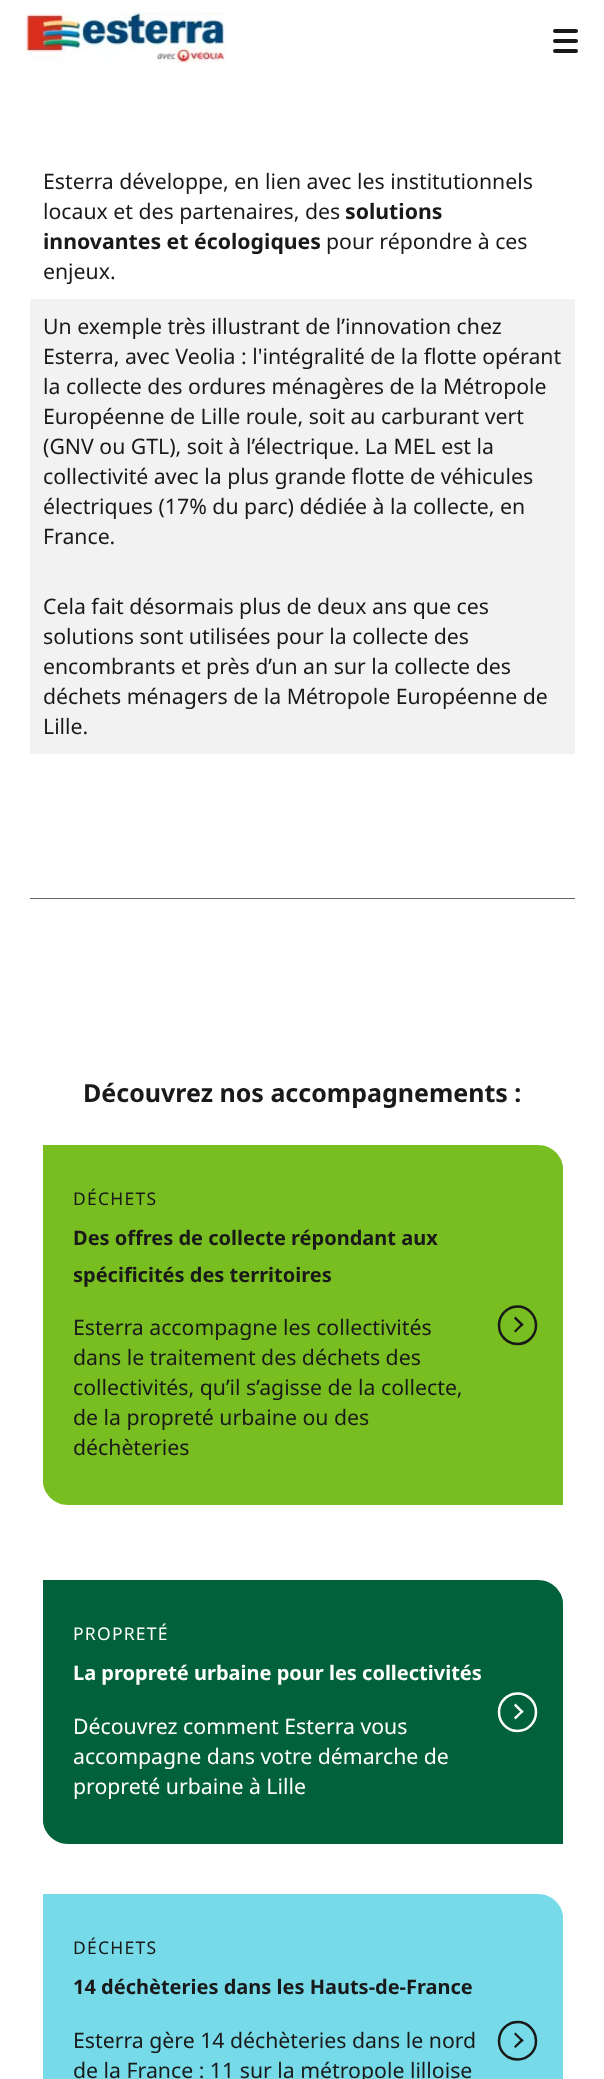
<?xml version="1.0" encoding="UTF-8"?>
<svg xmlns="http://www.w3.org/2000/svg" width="604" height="2079">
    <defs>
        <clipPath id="clip1"><path d="M 43 1145 H 538 C 552 1145 563 1156 563 1170 V 1505 H 68 C 54 1505 43 1494 43 1480 Z"/></clipPath>
        <clipPath id="clip2"><path d="M 43 1580 H 538 C 552 1580 563 1591 563 1605 V 1844 H 68 C 54 1844 43 1833 43 1819 Z"/></clipPath>
        <clipPath id="clip3"><path d="M 43 1894 H 538 C 552 1894 563 1905 563 1919 V 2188 H 68 C 54 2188 43 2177 43 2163 Z"/></clipPath>
    </defs>
    <rect width="100%" height="100%" fill="#FFFFFF"/>
    <image x="25" y="12" width="201" height="51" href="img_01.png"/>
    <rect x="553" y="49" width="25" height="4" rx="2" fill="#191919"/>
    <rect x="553" y="29" width="25" height="4" rx="2" fill="#191919"/>
    <rect x="553" y="39" width="25" height="4" rx="2" fill="#191919"/>
    <text font-family="Noto Sans" font-size="21.25" fill="#191919">
        <tspan x="43" y="189">Esterra développe, en lien avec les institutionnels</tspan>
        <tspan x="43" y="219">locaux et des partenaires, des</tspan>
    </text>
    <text x="345" y="219" font-family="Noto Sans" font-size="21.25" font-weight="700" fill="#191919">solutions</text>
    <text x="43" y="249" font-family="Noto Sans" font-size="21.25" font-weight="700" fill="#191919">innovantes et écologiques</text>
    <text x="326" y="249" font-family="Noto Sans" font-size="21.25" fill="#191919">pour répondre à ces</text>
    <text x="43" y="279" font-family="Noto Sans" font-size="21.25" fill="#191919">enjeux.</text>
    <rect x="30" y="299" width="545" height="455" fill="#F2F2F2"/>
    <text font-family="Noto Sans" font-size="21.25" fill="#191919">
        <tspan x="43" y="334">Un exemple très illustrant de l’innovation chez</tspan>
        <tspan x="43" y="364">Esterra, avec Veolia : l'intégralité de la flotte opérant</tspan>
        <tspan x="43" y="394">la collecte des ordures ménagères de la Métropole</tspan>
        <tspan x="43" y="424">Européenne de Lille roule, soit au carburant vert</tspan>
        <tspan x="43" y="454">(GNV ou GTL), soit à l’électrique. La MEL est la</tspan>
        <tspan x="43" y="484">collectivité avec la plus grande flotte de véhicules</tspan>
        <tspan x="43" y="514">électriques (17% du parc) dédiée à la collecte, en</tspan>
        <tspan x="43" y="544">France.</tspan>
    </text>
    <text font-family="Noto Sans" font-size="21.25" fill="#191919">
        <tspan x="43" y="614">Cela fait désormais plus de deux ans que ces</tspan>
        <tspan x="43" y="644">solutions sont utilisées pour la collecte des</tspan>
        <tspan x="43" y="674">encombrants et près d’un an sur la collecte des</tspan>
        <tspan x="43" y="704">déchets ménagers de la Métropole Européenne de</tspan>
        <tspan x="43" y="734">Lille.</tspan>
    </text>
    <rect x="30" y="898" width="545" height="1" fill="#666666"/>
    <text x="83" y="1102" font-family="Noto Sans" font-size="25" font-weight="700" fill="#191919">Découvrez nos accompagnements :</text>
    <path d="M 43 1145 H 538 C 552 1145 563 1156 563 1170 V 1505 H 68 C 54 1505 43 1494 43 1480 Z" fill="#78BE21"/>
    <g clip-path="url(#clip1)">
        <rect x="43" y="1158" width="520" height="335" fill="#78BE21"/>
    </g>
    <text x="73" y="1205" font-family="Noto Sans" font-size="17.5" letter-spacing="1.25" fill="#191919">DÉCHETS</text>
    <text font-family="Noto Sans" font-size="20" font-weight="700" fill="#191919">
        <tspan x="73" y="1245">Des offres de collecte répondant aux</tspan>
        <tspan x="73" y="1282">spécificités des territoires</tspan>
    </text>
    <text font-family="Noto Sans" font-size="21.25" fill="#191919">
        <tspan x="73" y="1335">Esterra accompagne les collectivités</tspan>
        <tspan x="73" y="1365">dans le traitement des déchets des</tspan>
        <tspan x="73" y="1395">collectivités, qu’il s’agisse de la collecte,</tspan>
        <tspan x="73" y="1425">de la propreté urbaine ou des</tspan>
        <tspan x="73" y="1455">déchèteries</tspan>
    </text>
    <path d="M 499 1325.5 C 499 1315 507 1306.5 517.5 1306.5 C 528 1306.5 536 1315 536 1325.5 C 536 1335.5 528 1344 517.5 1344 C 507 1344 499 1335.5 499 1325.5 Z" fill="none" stroke="#191919" stroke-width="2.5"/>
    <path d="M 514 1318.5 L 515.5 1316.5 L 523.5 1324.5 L 522 1326.5 Z" fill="#191919"/>
    <path d="M 514 1331 L 522 1323 L 523.5 1324.5 L 515.5 1332.5 Z" fill="#191919"/>
    <path d="M 43 1580 H 538 C 552 1580 563 1591 563 1605 V 1844 H 68 C 54 1844 43 1833 43 1819 Z" fill="#00613B"/>
    <g clip-path="url(#clip2)">
        <rect x="43" y="1593" width="520" height="238" fill="#00613B"/>
    </g>
    <text x="73" y="1640" font-family="Noto Sans" font-size="17.5" letter-spacing="1.25" fill="#FFFFFF">PROPRETÉ</text>
    <text x="73" y="1680" font-family="Noto Sans" font-size="20" font-weight="700" fill="#FFFFFF">La propreté urbaine pour les collectivités</text>
    <text font-family="Noto Sans" font-size="21.25" fill="#FFFFFF">
        <tspan x="73" y="1734">Découvrez comment Esterra vous</tspan>
        <tspan x="73" y="1764">accompagne dans votre démarche de</tspan>
        <tspan x="73" y="1794">propreté urbaine à Lille</tspan>
    </text>
    <path d="M 499 1712 C 499 1702 507 1693.5 517.5 1693.5 C 528 1693.5 536 1702 536 1712 C 536 1722.5 528 1731 517.5 1731 C 507 1731 499 1722.5 499 1712 Z" fill="none" stroke="#FFFFFF" stroke-width="2.5"/>
    <path d="M 514 1705.5 L 515.5 1703.5 L 523.5 1711.5 L 522 1713.5 Z" fill="#FFFFFF"/>
    <path d="M 514 1717.5 L 522 1710 L 523.5 1711.5 L 515.5 1719.5 Z" fill="#FFFFFF"/>
    <path d="M 43 1894 H 538 C 552 1894 563 1905 563 1919 V 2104 H 68 C 54 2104 43 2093 43 2079 Z" fill="#76DAE8"/>
    <g clip-path="url(#clip3)">
        <rect x="43" y="1906" width="520" height="173" fill="#76DAE8"/>
    </g>
    <text x="73" y="1954" font-family="Noto Sans" font-size="17.5" letter-spacing="1.25" fill="#191919">DÉCHETS</text>
    <text x="73" y="1994" font-family="Noto Sans" font-size="20" font-weight="700" fill="#191919">14 déchèteries dans les Hauts-de-France</text>
    <text font-family="Noto Sans" font-size="21.25" fill="#191919">
        <tspan x="73" y="2048">Esterra gère 14 déchèteries dans le nord</tspan>
        <tspan x="73" y="2078">de la France : 11 sur la métropole lilloise</tspan>
    </text>
    <path d="M 499 2041 C 499 2030.5 507 2022 517.5 2022 C 528 2022 536 2030.5 536 2041 C 536 2051.5 528 2059.5 517.5 2059.5 C 507 2059.5 499 2051.5 499 2041 Z" fill="none" stroke="#191919" stroke-width="2.5"/>
    <path d="M 514 2034 L 515.5 2032.5 L 523.5 2040.5 L 522 2042 Z" fill="#191919"/>
    <path d="M 514 2046.5 L 522 2038.5 L 523.5 2040.5 L 515.5 2048 Z" fill="#191919"/>
</svg>
